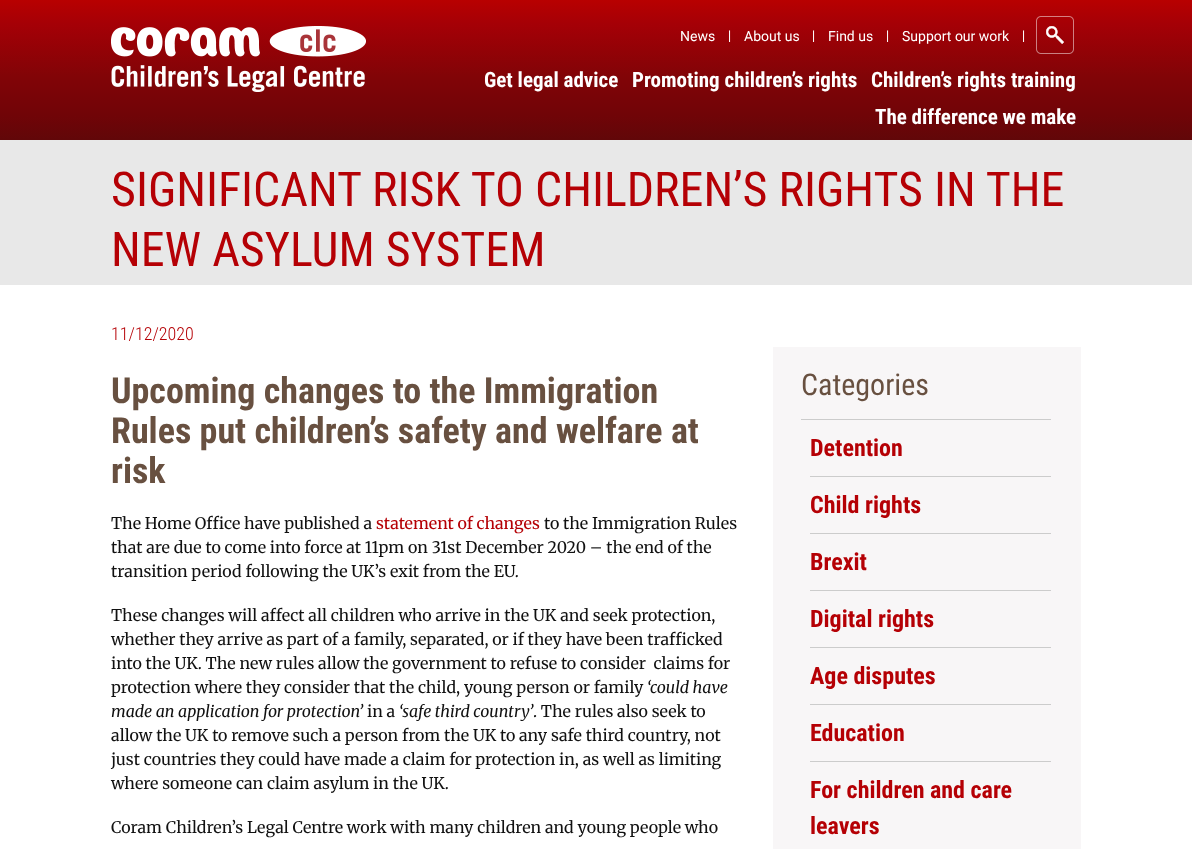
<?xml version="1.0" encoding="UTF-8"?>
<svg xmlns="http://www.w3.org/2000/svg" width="1192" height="849">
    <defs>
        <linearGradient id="g1" gradientUnits="userSpaceOnUse" x1="596" y1="0" x2="596" y2="140"><stop offset="0" stop-color="#B80000"/><stop offset="0.17" stop-color="#A50006"/><stop offset="0.54" stop-color="#820407"/><stop offset="0.83" stop-color="#700407"/><stop offset="1" stop-color="#610709"/></linearGradient>
    </defs>
    <rect width="100%" height="100%" fill="#FFFFFF"/>
    <rect x="0" y="0" width="1192" height="140" fill="url(#g1)"/>
    <image x="111" y="26" width="255" height="66" href="img_01.png"/>
    <text x="680" y="41" font-family="Roboto" font-size="14" fill="#FFFFFF">News</text>
    <text x="727" y="41" font-family="Merriweather" font-size="12" fill="#FFFFFF">|</text>
    <text x="744" y="41" font-family="Roboto" font-size="14" fill="#FFFFFF">About us</text>
    <text x="811" y="41" font-family="Merriweather" font-size="12" fill="#FFFFFF">|</text>
    <text x="828" y="41" font-family="Roboto" font-size="14" fill="#FFFFFF">Find us</text>
    <text x="885" y="41" font-family="Merriweather" font-size="12" fill="#FFFFFF">|</text>
    <text x="902" y="41" font-family="Roboto" font-size="14" fill="#FFFFFF">Support our work</text>
    <text x="1021" y="41" font-family="Merriweather" font-size="12" fill="#FFFFFF">|</text>
    <image x="1036" y="16" width="38" height="38" href="img_02.png"/>
    <text x="484" y="87" font-family="Roboto Condensed" font-size="21" font-weight="700" fill="#FFFFFF">Get legal advice</text>
    <text x="632" y="87" font-family="Roboto Condensed" font-size="21" font-weight="700" fill="#FFFFFF">Promoting children’s rights</text>
    <text x="871" y="87" font-family="Roboto Condensed" font-size="21" font-weight="700" fill="#FFFFFF">Children’s rights training</text>
    <text x="875" y="124" font-family="Roboto Condensed" font-size="21" font-weight="700" fill="#FFFFFF">The difference we make</text>
    <rect x="0" y="140" width="1192" height="145" fill="#E8E8E8"/>
    <text font-family="Roboto Condensed" font-size="48" fill="#B50005">
        <tspan x="111" y="206">SIGNIFICANT RISK TO CHILDREN’S RIGHTS IN THE</tspan>
        <tspan x="111" y="266">NEW ASYLUM SYSTEM</tspan>
    </text>
    <text x="111" y="340" font-family="Roboto Condensed" font-size="18" font-weight="300" fill="#B50005">11/12/2020</text>
    <text font-family="Roboto Condensed" font-size="36" font-weight="700" fill="#685040">
        <tspan x="111" y="403">Upcoming changes to the Immigration</tspan>
        <tspan x="111" y="443">Rules put children’s safety and welfare at</tspan>
        <tspan x="111" y="483">risk</tspan>
    </text>
    <text x="111" y="529" font-family="Merriweather" font-size="16" fill="#111111">The Home Office have published a</text>
    <text x="376" y="529" font-family="Merriweather" font-size="16" fill="#B50005">statement of changes</text>
    <text x="544" y="529" font-family="Merriweather" font-size="16" fill="#111111">to the Immigration Rules</text>
    <text font-family="Merriweather" font-size="16" fill="#111111">
        <tspan x="111" y="553">that are due to come into force at 11pm on 31st December 2020 – the end of the</tspan>
        <tspan x="111" y="577">transition period following the UK’s exit from the EU.</tspan>
    </text>
    <text font-family="Merriweather" font-size="16" fill="#111111" xml:space="preserve"><tspan x="111" y="621">These changes will affect all children who arrive in the UK and seek protection,</tspan><tspan x="111" y="645">whether they arrive as part of a family, separated, or if they have been trafficked</tspan><tspan x="111" y="669">into the UK. The new rules allow the government to refuse to consider  claims for</tspan><tspan x="111" y="693">protection where they consider that the child, young person or family</tspan></text>
    <text x="647" y="693" font-family="Merriweather" font-size="16" font-style="italic" fill="#111111">‘could have</text>
    <text x="111" y="717" font-family="Merriweather" font-size="16" font-style="italic" fill="#111111">made an application for protection’</text>
    <text x="367" y="717" font-family="Merriweather" font-size="16" fill="#111111">in a</text>
    <text x="399" y="717" font-family="Merriweather" font-size="16" font-style="italic" fill="#111111">‘safe third country’</text>
    <text x="533" y="717" font-family="Merriweather" font-size="16" fill="#111111">. The rules also seek to</text>
    <text font-family="Merriweather" font-size="16" fill="#111111">
        <tspan x="111" y="741">allow the UK to remove such a person from the UK to any safe third country, not</tspan>
        <tspan x="111" y="765">just countries they could have made a claim for protection in, as well as limiting</tspan>
        <tspan x="111" y="789">where someone can claim asylum in the UK.</tspan>
    </text>
    <text x="111" y="833" font-family="Merriweather" font-size="16" fill="#111111">Coram Children’s Legal Centre work with many children and young people who</text>
    <rect x="773" y="347" width="308" height="502" fill="#F8F6F7"/>
    <text x="801" y="395" font-family="Roboto Condensed" font-size="30" fill="#685040">Categories</text>
    <rect x="801" y="419" width="250" height="1" fill="#CCCCCC"/>
    <rect x="810" y="476" width="241" height="1" fill="#CCCCCC"/>
    <text x="810" y="456" font-family="Roboto Condensed" font-size="24" font-weight="700" fill="#B50005">Detention</text>
    <rect x="810" y="533" width="241" height="1" fill="#CCCCCC"/>
    <text x="810" y="513" font-family="Roboto Condensed" font-size="24" font-weight="700" fill="#B50005">Child rights</text>
    <rect x="810" y="590" width="241" height="1" fill="#CCCCCC"/>
    <text x="810" y="570" font-family="Roboto Condensed" font-size="24" font-weight="700" fill="#B50005">Brexit</text>
    <rect x="810" y="647" width="241" height="1" fill="#CCCCCC"/>
    <text x="810" y="627" font-family="Roboto Condensed" font-size="24" font-weight="700" fill="#B50005">Digital rights</text>
    <rect x="810" y="704" width="241" height="1" fill="#CCCCCC"/>
    <text x="810" y="684" font-family="Roboto Condensed" font-size="24" font-weight="700" fill="#B50005">Age disputes</text>
    <rect x="810" y="761" width="241" height="1" fill="#CCCCCC"/>
    <text x="810" y="741" font-family="Roboto Condensed" font-size="24" font-weight="700" fill="#B50005">Education</text>
    <text font-family="Roboto Condensed" font-size="24" font-weight="700" fill="#B50005">
        <tspan x="810" y="798">For children and care</tspan>
        <tspan x="810" y="834">leavers</tspan>
    </text>
</svg>
